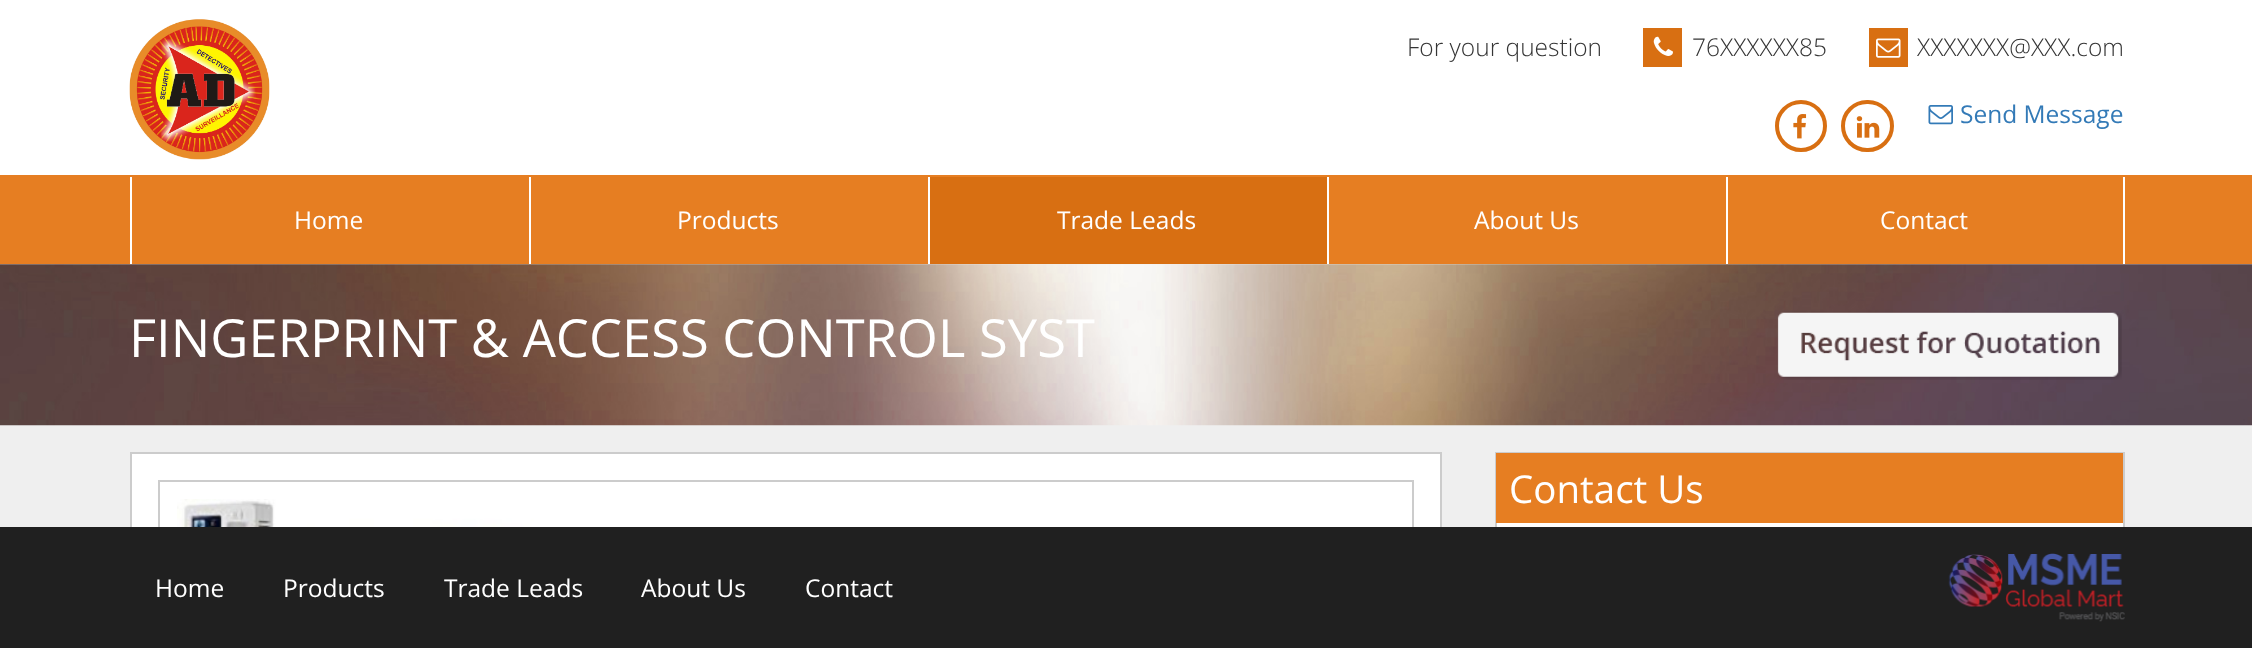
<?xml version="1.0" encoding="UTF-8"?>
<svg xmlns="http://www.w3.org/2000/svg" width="2252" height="648">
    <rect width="100%" height="100%" fill="#EFEFEF"/>
    <rect x="0" y="0" width="2252" height="175" fill="#FFFFFF"/>
    <image x="129" y="19" width="141" height="141" href="img_01.png"/>
    <text x="1407" y="56" font-family="Open Sans" font-size="24.5" font-weight="300" fill="#353535">For your question</text>
    <rect x="1643" y="28" width="39" height="39" fill="#D86F12"/>
    <image x="1653" y="36" width="20" height="20" href="img_02.png"/>
    <text x="1692" y="56" font-family="Open Sans" font-size="24.5" font-weight="300" fill="#353535">76XXXXXX85</text>
    <rect x="1869" y="28" width="39" height="39" fill="#D86F12"/>
    <image x="1876" y="38" width="25" height="20" href="img_03.png"/>
    <text x="1917" y="56" font-family="Open Sans" font-size="24.5" font-weight="300" fill="#353535">XXXXXXX@XXX.com</text>
    <circle cx="1801" cy="126" r="24" fill="none" stroke="#D86F12" stroke-width="4"/>
    <image x="1793" y="114" width="14" height="25" href="img_04.png"/>
    <rect x="1843" y="102" width="49" height="48" rx="24" fill="none" stroke="#D86F12" stroke-width="4"/>
    <image x="1856" y="116" width="24" height="22" href="img_05.png"/>
    <image x="1928" y="105" width="25" height="20" href="img_06.png"/>
    <text x="1960" y="123" font-family="Open Sans" font-size="24.5" fill="#337AB7">Send Message</text>
    <rect x="0" y="175" width="2252" height="89" fill="#E67E22"/>
    <rect x="130" y="177" width="2" height="87" fill="#FFFFFF"/>
    <text x="294" y="229" font-family="Open Sans" font-size="24.5" fill="#FFFFFF">Home</text>
    <rect x="529" y="177" width="2" height="87" fill="#FFFFFF"/>
    <text x="677" y="229" font-family="Open Sans" font-size="24.5" fill="#FFFFFF">Products</text>
    <rect x="930" y="177" width="397" height="87" fill="#D86F12"/>
    <rect x="928" y="177" width="2" height="87" fill="#FFFFFF"/>
    <text x="1057" y="229" font-family="Open Sans" font-size="24.5" fill="#FFFFFF">Trade Leads</text>
    <rect x="1327" y="177" width="2" height="87" fill="#FFFFFF"/>
    <text x="1474" y="229" font-family="Open Sans" font-size="24.5" fill="#FFFFFF">About Us</text>
    <rect x="2123" y="177" width="2" height="87" fill="#FFFFFF"/>
    <rect x="1726" y="177" width="2" height="87" fill="#FFFFFF"/>
    <text x="1880" y="229" font-family="Open Sans" font-size="24.5" fill="#FFFFFF">Contact</text>
    <image x="0" y="264" width="2252" height="162" href="img_07.png"/>
    <text x="129" y="357" font-family="Open Sans" font-size="52.5" fill="#FFFFFF">FINGERPRINT &amp; ACCESS CONTROL SYST</text>
    <image x="1777" y="311" width="345" height="69" href="img_08.png"/>
    <rect x="132" y="454" width="1308" height="73" fill="#FFFFFF"/>
    <rect x="131" y="453" width="1310" height="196" fill="none" stroke="#CCCCCC" stroke-width="2"/>
    <rect x="159" y="481" width="1254" height="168" fill="none" stroke="#CCCCCC" stroke-width="2"/>
    <image x="177" y="499" width="366" height="28" href="img_09.png"/>
    <rect x="1497" y="523" width="626" height="4" fill="#FFFFFF"/>
    <rect x="1496" y="453" width="628" height="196" fill="none" stroke="#CCCCCC" stroke-width="2"/>
    <rect x="1496" y="453" width="627" height="70" fill="#E67E22"/>
    <text x="1509" y="503" font-family="Open Sans" font-size="38.5" fill="#FFFFFF">Contact Us</text>
    <rect x="0" y="527" width="2252" height="121" fill="#202020"/>
    <text x="155" y="597" font-family="Open Sans" font-size="24.5" fill="#FFFFFF">Home</text>
    <text x="283" y="597" font-family="Open Sans" font-size="24.5" fill="#FFFFFF">Products</text>
    <text x="444" y="597" font-family="Open Sans" font-size="24.5" fill="#FFFFFF">Trade Leads</text>
    <text x="641" y="597" font-family="Open Sans" font-size="24.5" fill="#FFFFFF">About Us</text>
    <text x="805" y="597" font-family="Open Sans" font-size="24.5" fill="#FFFFFF">Contact</text>
    <image x="1948" y="553" width="177" height="69" href="img_10.png"/>
</svg>
